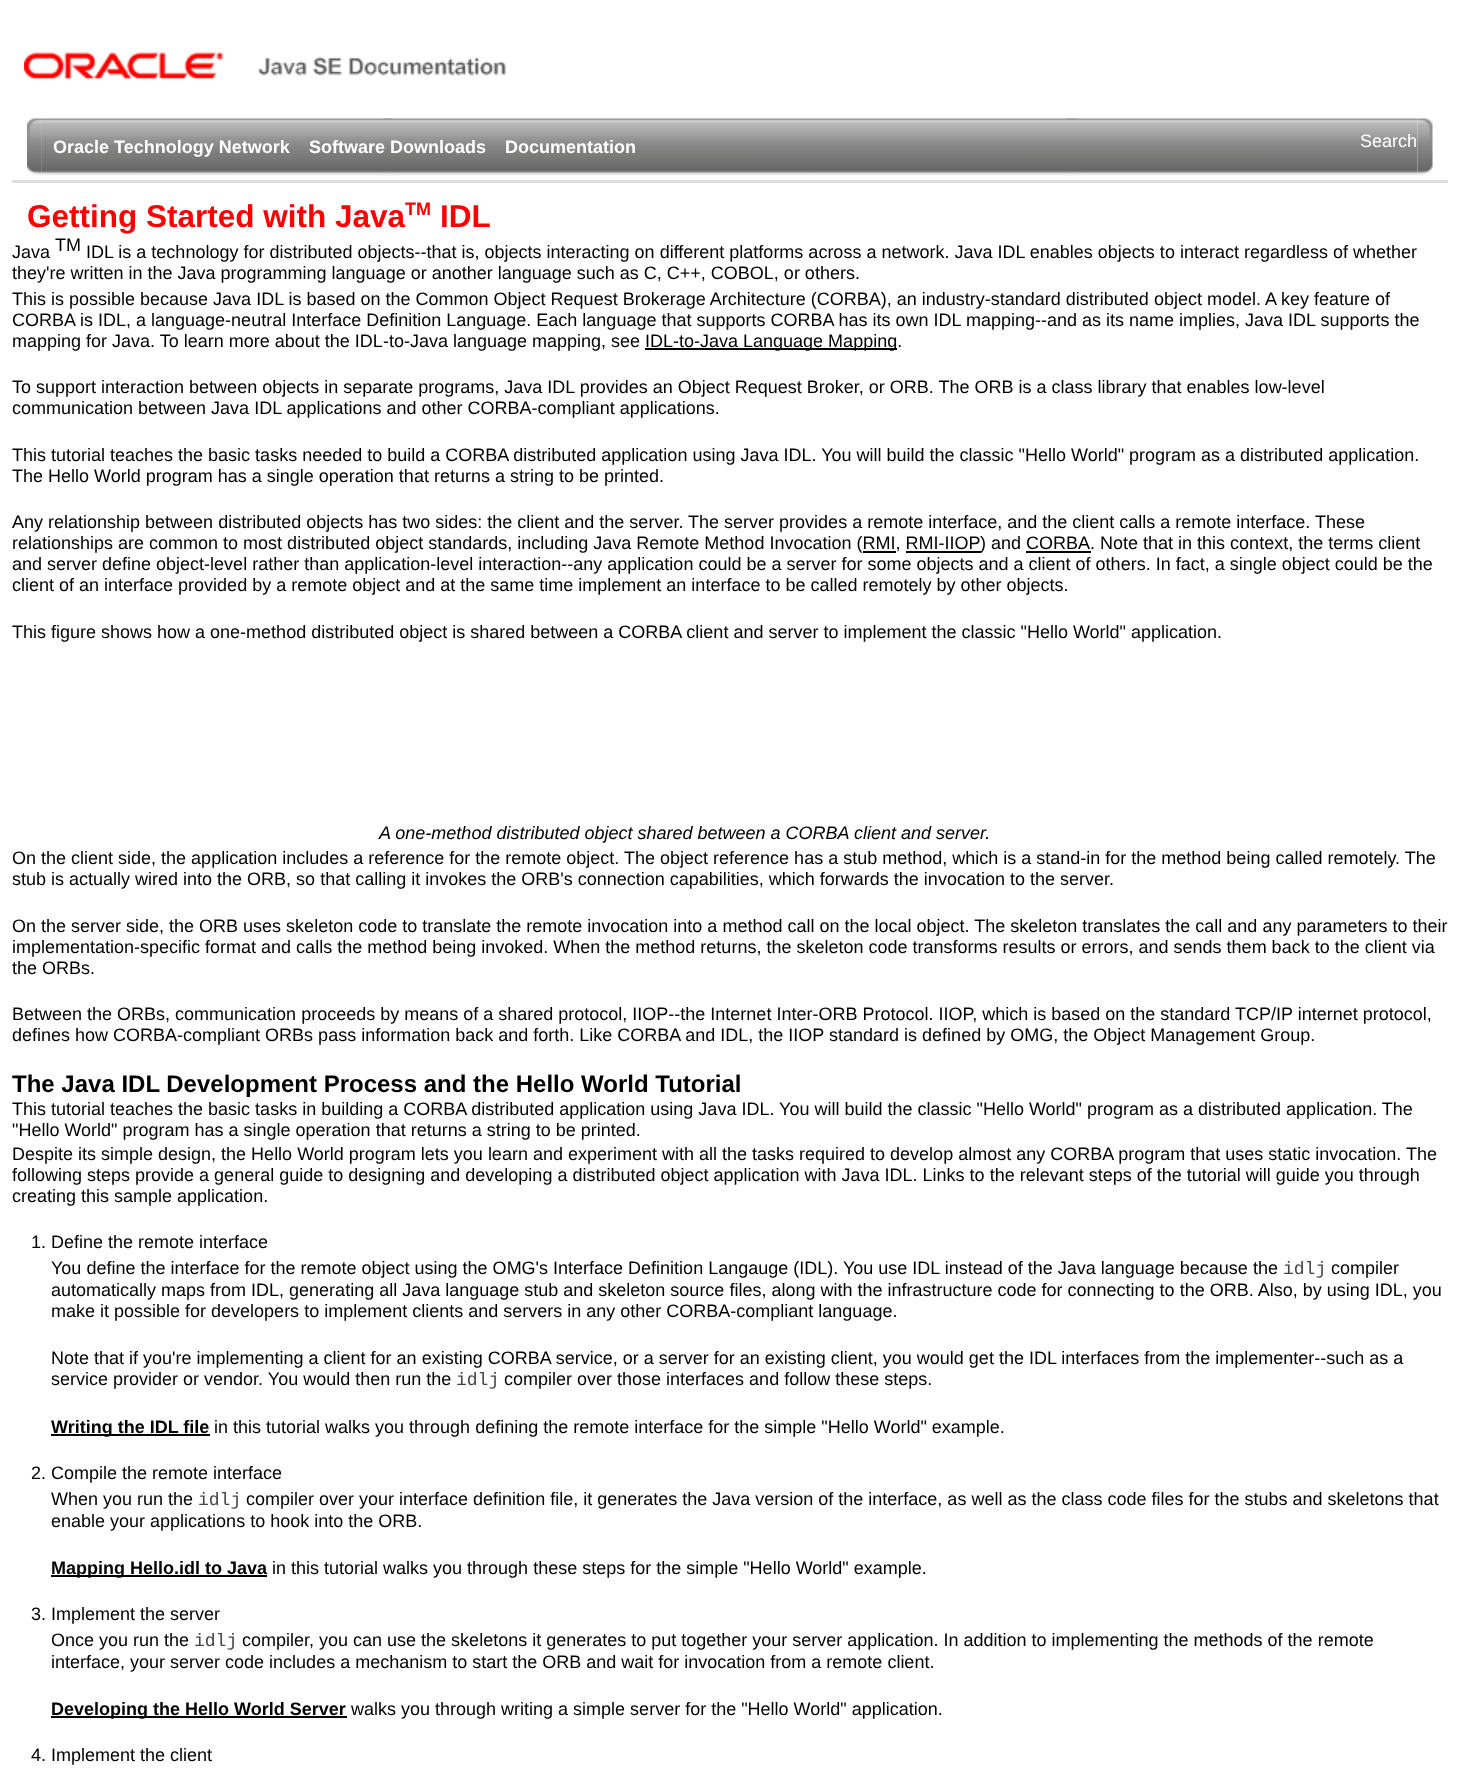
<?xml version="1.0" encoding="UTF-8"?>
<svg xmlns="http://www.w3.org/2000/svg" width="1459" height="1773">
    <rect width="100%" height="100%" fill="#FFFFFF"/>
    <image x="27" y="118" width="1055" height="58" href="img_01.png"/>
    <image x="377" y="118" width="1056" height="58" href="img_02.png"/>
    <image x="42" y="118" width="1376" height="58" href="img_03.png"/>
    <image x="257" y="56" width="249" height="20" href="img_04.png"/>
    <image x="24" y="52" width="200" height="28" href="img_05.png"/>
    <text x="53" y="153" font-family="Liberation Sans" font-size="18" font-weight="700" fill="#FFFFFF">Oracle Technology Network</text>
    <text x="309" y="153" font-family="Liberation Sans" font-size="18" font-weight="700" fill="#FFFFFF">Software Downloads</text>
    <text x="505" y="153" font-family="Liberation Sans" font-size="18" font-weight="700" fill="#FFFFFF">Documentation</text>
    <text x="1360" y="147" font-family="Liberation Sans" font-size="18" fill="#FFFFFF">Search</text>
    <rect x="12" y="180" width="1436" height="3" fill="#DDDDDD"/>
    <text x="27" y="227" font-family="Liberation Sans" font-size="31.5" font-weight="700" fill="#FF0000">Getting Started with Java</text>
    <text x="405" y="215" font-family="Liberation Sans" font-size="18" font-weight="700" fill="#FF0000">TM</text>
    <text x="440" y="227" font-family="Liberation Sans" font-size="31.5" font-weight="700" fill="#FF0000">IDL</text>
    <text x="12" y="258" font-family="Liberation Sans" font-size="18" fill="#000000">Java</text>
    <text x="55" y="251" font-family="Liberation Sans" font-size="18" fill="#000000">TM</text>
    <text x="86" y="258" font-family="Liberation Sans" font-size="18" fill="#000000">IDL is a technology for distributed objects--that is, objects interacting on different platforms across a network. Java IDL enables objects to interact regardless of whether</text>
    <text font-family="Liberation Sans" font-size="18" fill="#000000">
        <tspan x="12" y="279">they're written in the Java programming language or another language such as C, C++, COBOL, or others.</tspan>
        <tspan x="12" y="305">This is possible because Java IDL is based on the Common Object Request Brokerage Architecture (CORBA), an industry-standard distributed object model. A key feature of</tspan>
        <tspan x="12" y="326">CORBA is IDL, a language-neutral Interface Definition Language. Each language that supports CORBA has its own IDL mapping--and as its name implies, Java IDL supports the</tspan>
        <tspan x="12" y="347">mapping for Java. To learn more about the IDL-to-Java language mapping, see</tspan>
    </text>
    <rect x="645" y="348" width="252" height="2" fill="#000000"/>
    <text x="645" y="347" font-family="Liberation Sans" font-size="18" fill="#000000">IDL-to-Java Language Mapping.</text>
    <text font-family="Liberation Sans" font-size="18" fill="#000000">
        <tspan x="12" y="393">To support interaction between objects in separate programs, Java IDL provides an Object Request Broker, or ORB. The ORB is a class library that enables low-level</tspan>
        <tspan x="12" y="414">communication between Java IDL applications and other CORBA-compliant applications.</tspan>
    </text>
    <text font-family="Liberation Sans" font-size="18" fill="#000000">
        <tspan x="12" y="461">This tutorial teaches the basic tasks needed to build a CORBA distributed application using Java IDL. You will build the classic "Hello World" program as a distributed application.</tspan>
        <tspan x="12" y="482">The Hello World program has a single operation that returns a string to be printed.</tspan>
    </text>
    <text font-family="Liberation Sans" font-size="18" fill="#000000">
        <tspan x="12" y="528">Any relationship between distributed objects has two sides: the client and the server. The server provides a remote interface, and the client calls a remote interface. These</tspan>
        <tspan x="12" y="549">relationships are common to most distributed object standards, including Java Remote Method Invocation (RMI, RMI-IIOP</tspan>
    </text>
    <rect x="906" y="551" width="75" height="2" fill="#000000"/>
    <text x="980" y="549" font-family="Liberation Sans" font-size="18" fill="#000000">) and CORBA. Note that in this context, the terms client</text>
    <rect x="863" y="551" width="33" height="2" fill="#000000"/>
    <rect x="1026" y="551" width="65" height="2" fill="#000000"/>
    <text font-family="Liberation Sans" font-size="18" fill="#000000">
        <tspan x="12" y="570">and server define object-level rather than application-level interaction--any application could be a server for some objects and a client of others. In fact, a single object could be the</tspan>
        <tspan x="12" y="591">client of an interface provided by a remote object and at the same time implement an interface to be called remotely by other objects.</tspan>
    </text>
    <text x="12" y="638" font-family="Liberation Sans" font-size="18" fill="#000000">This figure shows how a one-method distributed object is shared between a CORBA client and server to implement the classic "Hello World" application.</text>
    <text x="379" y="839" font-family="Liberation Sans" font-size="18" font-style="italic" fill="#000000">A one-method distributed object shared between a CORBA client and server.</text>
    <text font-family="Liberation Sans" font-size="18" fill="#000000">
        <tspan x="12" y="864">On the client side, the application includes a reference for the remote object. The object reference has a stub method, which is a stand-in for the method being called remotely. The</tspan>
        <tspan x="12" y="885">stub is actually wired into the ORB, so that calling it invokes the ORB's connection capabilities, which forwards the invocation to the server.</tspan>
    </text>
    <text font-family="Liberation Sans" font-size="18" fill="#000000">
        <tspan x="12" y="932">On the server side, the ORB uses skeleton code to translate the remote invocation into a method call on the local object. The skeleton translates the call and any parameters to their</tspan>
        <tspan x="12" y="953">implementation-specific format and calls the method being invoked. When the method returns, the skeleton code transforms results or errors, and sends them back to the client via</tspan>
        <tspan x="12" y="974">the ORBs.</tspan>
    </text>
    <text font-family="Liberation Sans" font-size="18" fill="#000000">
        <tspan x="12" y="1020">Between the ORBs, communication proceeds by means of a shared protocol, IIOP--the Internet Inter-ORB Protocol. IIOP, which is based on the standard TCP/IP internet protocol,</tspan>
        <tspan x="12" y="1041">defines how CORBA-compliant ORBs pass information back and forth. Like CORBA and IDL, the IIOP standard is defined by OMG, the Object Management Group.</tspan>
    </text>
    <text x="12" y="1092" font-family="Liberation Sans" font-size="24" font-weight="700" fill="#000000">The Java IDL Development Process and the Hello World Tutorial</text>
    <text font-family="Liberation Sans" font-size="18" fill="#000000">
        <tspan x="12" y="1115">This tutorial teaches the basic tasks in building a CORBA distributed application using Java IDL. You will build the classic "Hello World" program as a distributed application. The</tspan>
        <tspan x="12" y="1136">"Hello World" program has a single operation that returns a string to be printed.</tspan>
        <tspan x="12" y="1160">Despite its simple design, the Hello World program lets you learn and experiment with all the tasks required to develop almost any CORBA program that uses static invocation. The</tspan>
        <tspan x="12" y="1181">following steps provide a general guide to designing and developing a distributed object application with Java IDL. Links to the relevant steps of the tutorial will guide you through</tspan>
        <tspan x="12" y="1202">creating this sample application.</tspan>
    </text>
    <text x="31" y="1248" font-family="Liberation Sans" font-size="18" fill="#000000">1. Define the remote interface</text>
    <text x="51" y="1274" font-family="Liberation Sans" font-size="18" fill="#000000">You define the interface for the remote object using the OMG's Interface Definition Langauge (IDL). You use IDL instead of the Java language because the</text>
    <text x="1283" y="1274" font-family="Liberation Mono" font-size="18" fill="#444444">idlj</text>
    <text x="1331" y="1274" font-family="Liberation Sans" font-size="18" fill="#000000">compiler</text>
    <text font-family="Liberation Sans" font-size="18" fill="#000000">
        <tspan x="51" y="1296">automatically maps from IDL, generating all Java language stub and skeleton source files, along with the infrastructure code for connecting to the ORB. Also, by using IDL, you</tspan>
        <tspan x="51" y="1317">make it possible for developers to implement clients and servers in any other CORBA-compliant language.</tspan>
    </text>
    <text font-family="Liberation Sans" font-size="18" fill="#000000">
        <tspan x="51" y="1364">Note that if you're implementing a client for an existing CORBA service, or a server for an existing client, you would get the IDL interfaces from the implementer--such as a</tspan>
        <tspan x="51" y="1385">service provider or vendor. You would then run the</tspan>
    </text>
    <text x="456" y="1385" font-family="Liberation Mono" font-size="18" fill="#444444">idlj</text>
    <text x="504" y="1385" font-family="Liberation Sans" font-size="18" fill="#000000">compiler over those interfaces and follow these steps.</text>
    <rect x="51" y="1434" width="159" height="2" fill="#000000"/>
    <text x="51" y="1433" font-family="Liberation Sans" font-size="18" font-weight="700" fill="#000000">Writing the IDL file</text>
    <text x="214" y="1433" font-family="Liberation Sans" font-size="18" fill="#000000">in this tutorial walks you through defining the remote interface for the simple "Hello World" example.</text>
    <text x="31" y="1479" font-family="Liberation Sans" font-size="18" fill="#000000">2. Compile the remote interface</text>
    <text x="51" y="1505" font-family="Liberation Sans" font-size="18" fill="#000000">When you run the</text>
    <text x="198" y="1505" font-family="Liberation Mono" font-size="18" fill="#444444">idlj</text>
    <text x="246" y="1505" font-family="Liberation Sans" font-size="18" fill="#000000">compiler over your interface definition file, it generates the Java version of the interface, as well as the class code files for the stubs and skeletons that</text>
    <text x="51" y="1527" font-family="Liberation Sans" font-size="18" fill="#000000">enable your applications to hook into the ORB.</text>
    <rect x="51" y="1575" width="216" height="2" fill="#000000"/>
    <text x="51" y="1574" font-family="Liberation Sans" font-size="18" font-weight="700" fill="#000000">Mapping Hello.idl to Java</text>
    <text x="272" y="1574" font-family="Liberation Sans" font-size="18" fill="#000000">in this tutorial walks you through these steps for the simple "Hello World" example.</text>
    <text x="31" y="1620" font-family="Liberation Sans" font-size="18" fill="#000000">3. Implement the server</text>
    <text x="51" y="1646" font-family="Liberation Sans" font-size="18" fill="#000000">Once you run the</text>
    <text x="194" y="1646" font-family="Liberation Mono" font-size="18" fill="#444444">idlj</text>
    <text x="242" y="1646" font-family="Liberation Sans" font-size="18" fill="#000000">compiler, you can use the skeletons it generates to put together your server application. In addition to implementing the methods of the remote</text>
    <text x="51" y="1668" font-family="Liberation Sans" font-size="18" fill="#000000">interface, your server code includes a mechanism to start the ORB and wait for invocation from a remote client.</text>
    <rect x="51" y="1716" width="296" height="2" fill="#000000"/>
    <text x="51" y="1715" font-family="Liberation Sans" font-size="18" font-weight="700" fill="#000000">Developing the Hello World Server</text>
    <text x="351" y="1715" font-family="Liberation Sans" font-size="18" fill="#000000">walks you through writing a simple server for the "Hello World" application.</text>
    <text x="31" y="1761" font-family="Liberation Sans" font-size="18" fill="#000000">4. Implement the client</text>
</svg>
